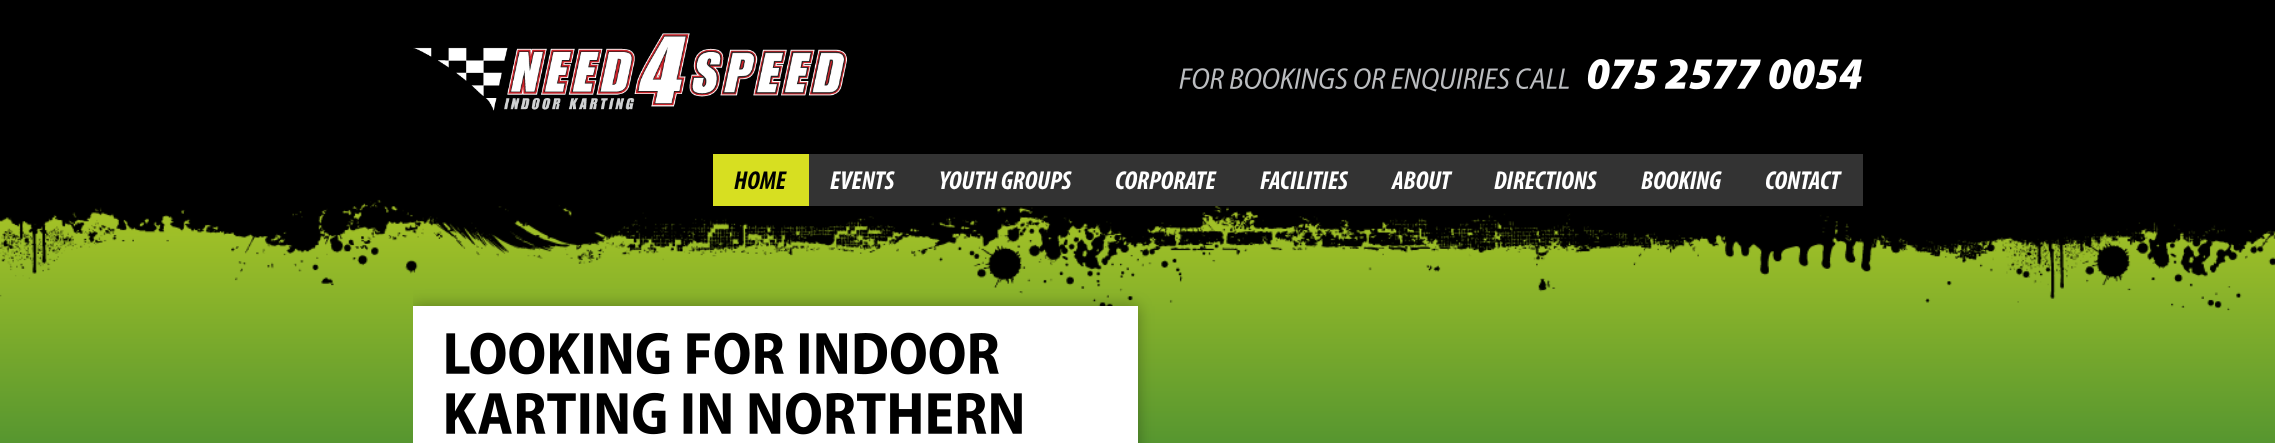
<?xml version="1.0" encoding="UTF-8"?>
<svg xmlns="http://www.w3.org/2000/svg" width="2275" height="443">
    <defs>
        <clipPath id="clip1"><rect x="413" y="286" width="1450" height="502"/></clipPath>
        <filter id="blur1" x="-50%" y="-200%" width="200%" height="500%"><feGaussianBlur stdDeviation="7.5"/></filter>
    </defs>
    <rect width="100%" height="100%" fill="#FFFFFF"/>
    <image x="0" y="199" width="2275" height="244" href="img_01.png"/>
    <image x="0" y="0" width="2275" height="311" href="img_02.png"/>
    <image x="413" y="33" width="434" height="78" href="img_03.png"/>
    <image x="1179" y="68" width="331" height="24" href="img_04.png"/>
    <image x="1516" y="68" width="53" height="21" href="img_05.png"/>
    <image x="1587" y="59" width="275" height="31" href="img_06.png"/>
    <rect x="713" y="154" width="96" height="52" fill="#D7DF21"/>
    <text x="734" y="189" font-family="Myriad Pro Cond" font-size="26" font-weight="700" font-style="italic" fill="#000000">HOME</text>
    <rect x="809" y="154" width="1054" height="52" fill="#333333"/>
    <text x="830" y="189" font-family="Myriad Pro Cond" font-size="26" font-weight="700" font-style="italic" fill="#FFFFFF">EVENTS</text>
    <text x="939" y="189" font-family="Myriad Pro Cond" font-size="26" font-weight="700" font-style="italic" fill="#FFFFFF">YOUTH GROUPS</text>
    <text x="1115" y="189" font-family="Myriad Pro Cond" font-size="26" font-weight="700" font-style="italic" fill="#FFFFFF">CORPORATE</text>
    <text x="1260" y="189" font-family="Myriad Pro Cond" font-size="26" font-weight="700" font-style="italic" fill="#FFFFFF">FACILITIES</text>
    <text x="1392" y="189" font-family="Myriad Pro Cond" font-size="26" font-weight="700" font-style="italic" fill="#FFFFFF">ABOUT</text>
    <text x="1494" y="189" font-family="Myriad Pro Cond" font-size="26" font-weight="700" font-style="italic" fill="#FFFFFF">DIRECTIONS</text>
    <text x="1641" y="189" font-family="Myriad Pro Cond" font-size="26" font-weight="700" font-style="italic" fill="#FFFFFF">BOOKING</text>
    <text x="1765" y="189" font-family="Myriad Pro Cond" font-size="26" font-weight="700" font-style="italic" fill="#FFFFFF">CONTACT</text>
    <g clip-path="url(#clip1)">
        <rect x="413" y="306" width="725" height="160" fill="#000000" fill-opacity="0.3" filter="url(#blur1)"/>
    </g>
    <rect x="413" y="306" width="725" height="137" fill="#FFFFFF"/>
    <image x="446" y="332" width="553" height="43" href="img_07.png"/>
    <image x="446" y="392" width="576" height="43" href="img_08.png"/>
</svg>
